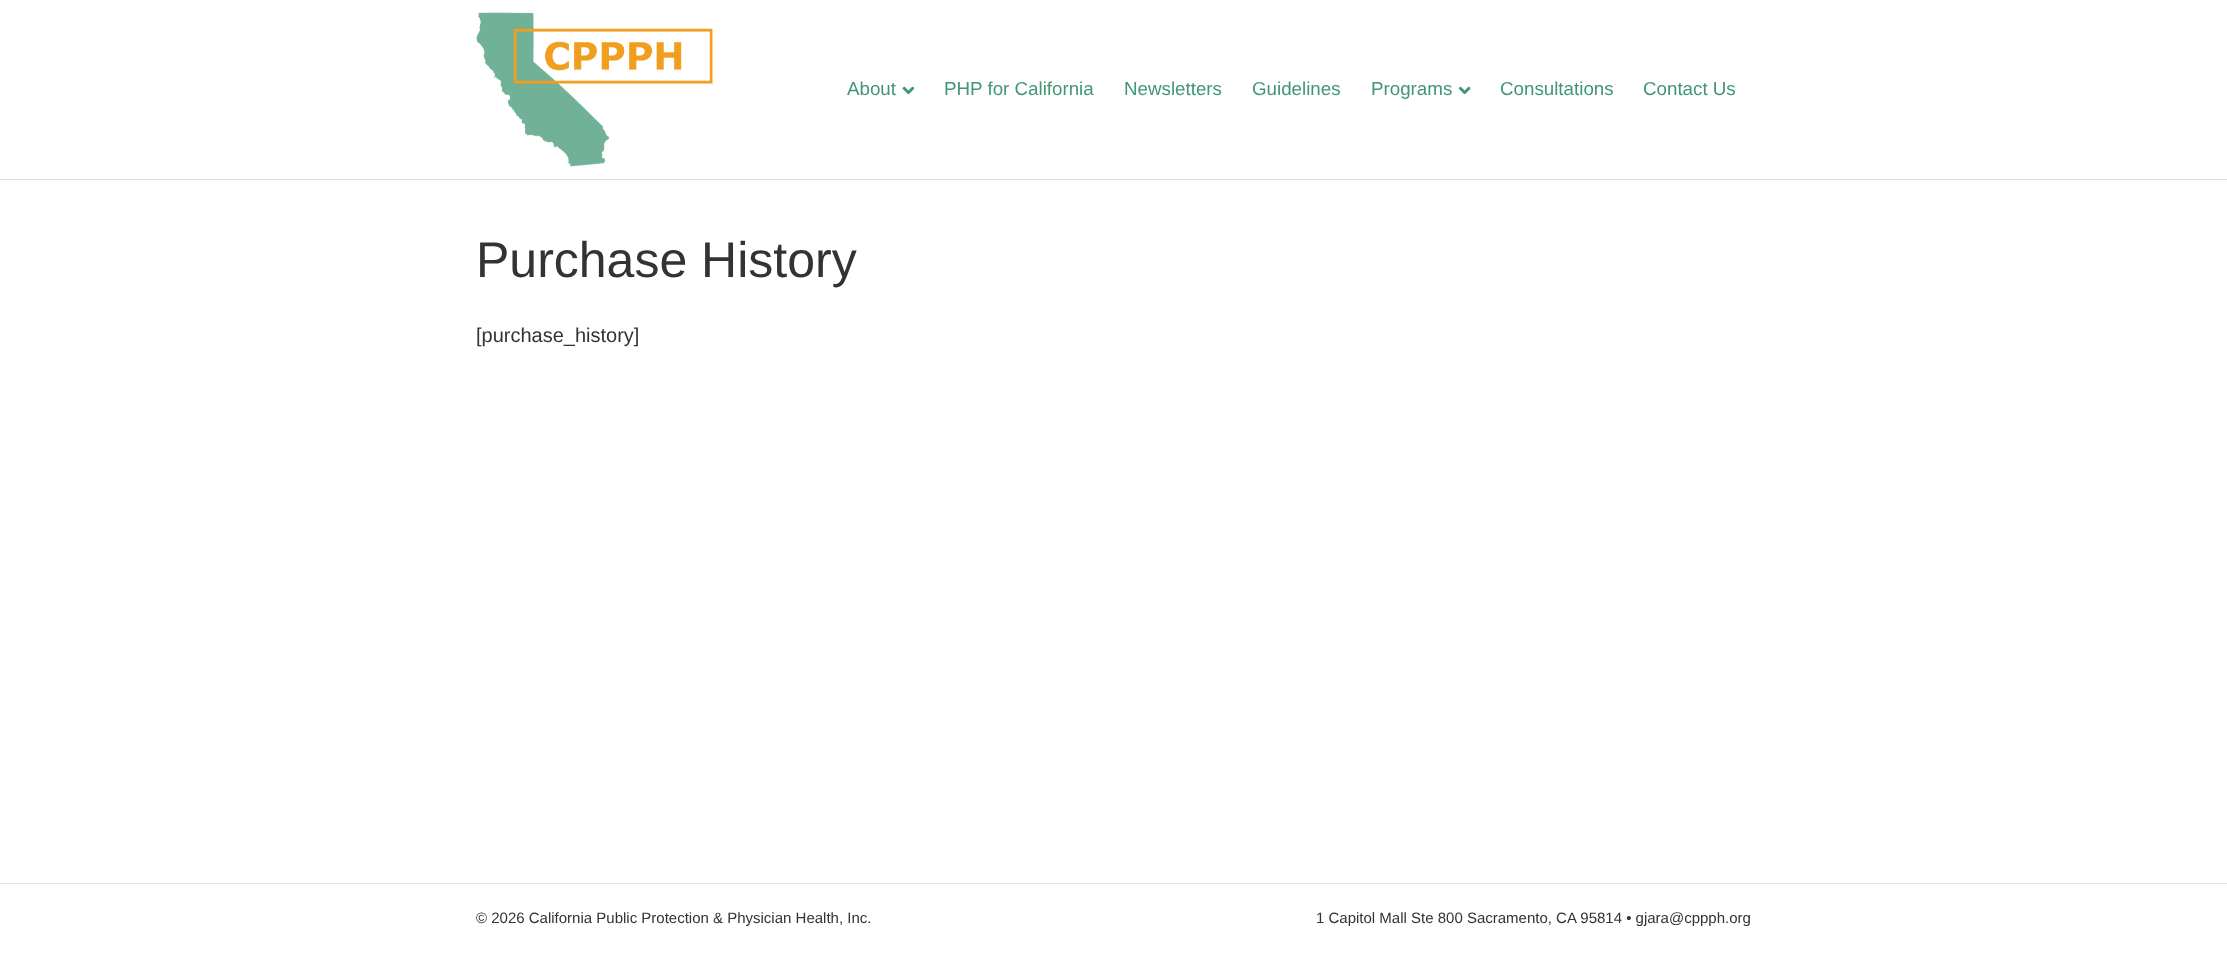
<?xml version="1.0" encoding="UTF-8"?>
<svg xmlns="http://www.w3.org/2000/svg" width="2227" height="955">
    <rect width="100%" height="100%" fill="#FFFFFF"/>
    <rect x="0" y="179" width="2227" height="1" fill="#DEDEDE"/>
    <image x="476" y="12" width="237" height="155" href="img_01.png"/>
    <text x="847" y="95" font-family="Liberation Sans" font-size="18.75" fill="#429674">About</text>
    <image x="902" y="86" width="13" height="9" href="img_02.png"/>
    <text x="944" y="95" font-family="Liberation Sans" font-size="18.75" fill="#429674">PHP for California</text>
    <text x="1124" y="95" font-family="Liberation Sans" font-size="18.75" fill="#429674">Newsletters</text>
    <text x="1252" y="95" font-family="Liberation Sans" font-size="18.75" fill="#429674">Guidelines</text>
    <text x="1371" y="95" font-family="Liberation Sans" font-size="18.75" fill="#429674">Programs</text>
    <image x="1458" y="86" width="13" height="9" href="img_03.png"/>
    <text x="1500" y="95" font-family="Liberation Sans" font-size="18.75" fill="#429674">Consultations</text>
    <text x="1643" y="95" font-family="Liberation Sans" font-size="18.75" fill="#429674">Contact Us</text>
    <text x="476" y="277" font-family="Liberation Sans" font-size="50" fill="#333333">Purchase History</text>
    <text x="476" y="342" font-family="Liberation Sans" font-size="20" fill="#333333">[purchase_history]</text>
    <rect x="0" y="883" width="2227" height="1" fill="#E6E6E6"/>
    <text x="476" y="923" font-family="Liberation Sans" font-size="15" fill="#333333">© 2026 California Public Protection &amp; Physician Health, Inc.</text>
    <text x="1316" y="923" font-family="Liberation Sans" font-size="15" fill="#333333">1 Capitol Mall Ste 800 Sacramento, CA 95814 • gjara@cppph.org</text>
</svg>
